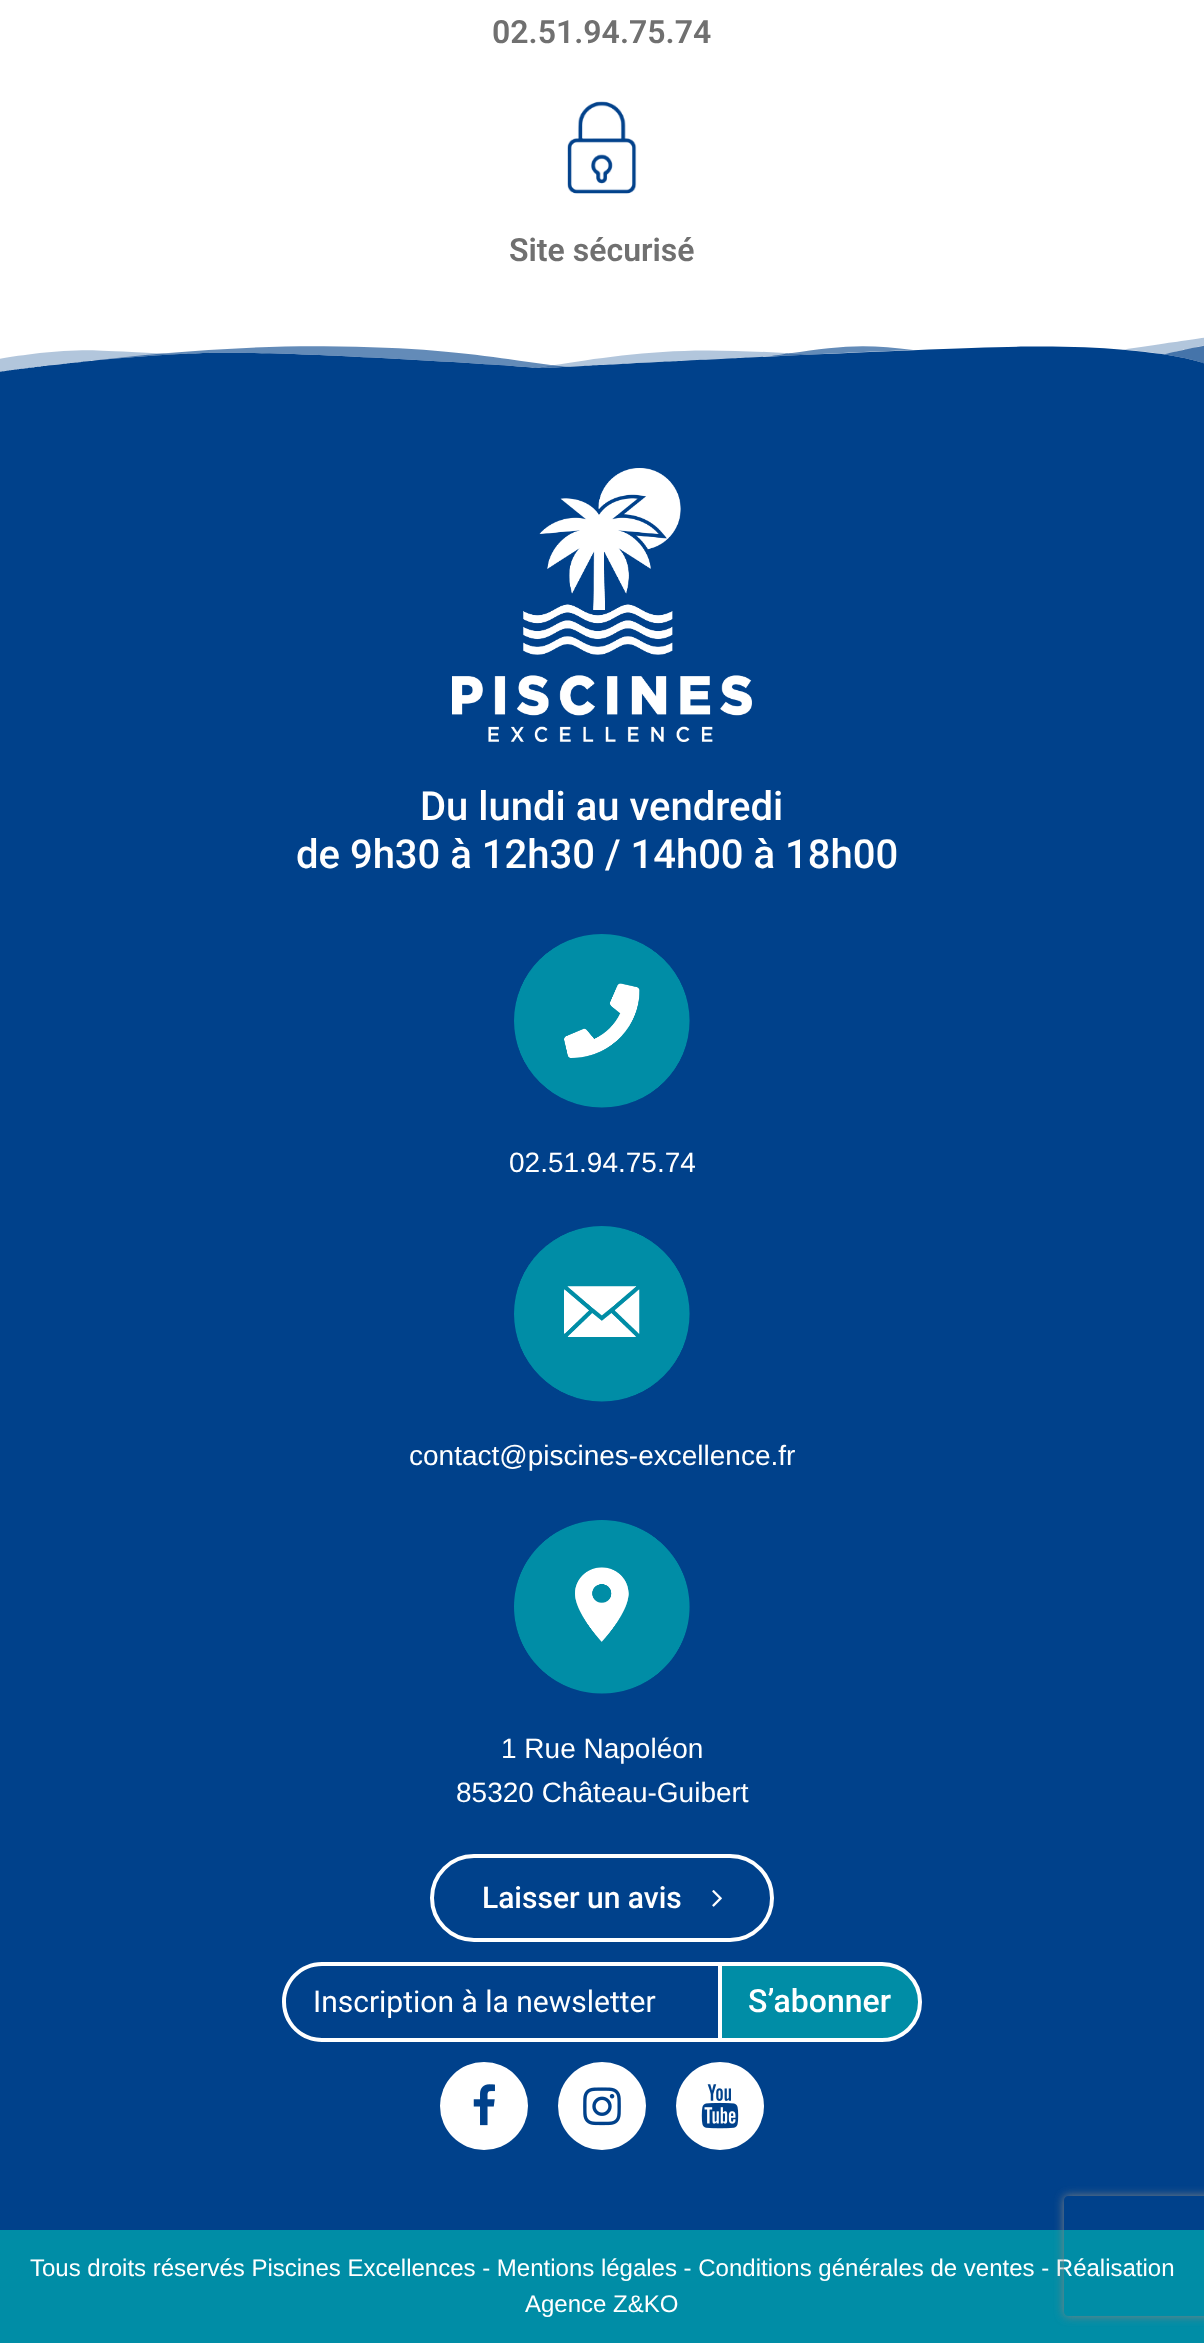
<?xml version="1.0" encoding="UTF-8"?>
<svg xmlns="http://www.w3.org/2000/svg" width="1204" height="2343">
    <defs>
        <clipPath id="clip1"><path d="M 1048 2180 H 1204 V 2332 H 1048 Z M 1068 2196 H 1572 C 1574 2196 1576 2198 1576 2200 V 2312 C 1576 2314 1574 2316 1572 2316 H 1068 C 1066 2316 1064 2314 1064 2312 V 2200 C 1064 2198 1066 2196 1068 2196 Z" clip-rule="evenodd"/></clipPath>
        <filter id="blur1" x="-50%" y="-200%" width="200%" height="500%"><feGaussianBlur stdDeviation="5"/></filter>
    </defs>
    <rect width="100%" height="100%" fill="#FFFFFF"/>
    <text x="492" y="43" font-family="Roboto" font-size="32" font-weight="600" fill="#707070">02.51.94.75.74</text>
    <image x="567" y="101" width="70" height="93" href="img_01.png"/>
    <text x="509" y="261" font-family="Roboto" font-size="32" font-weight="600" fill="#707070">Site sécurisé</text>
    <rect x="0" y="396" width="1204" height="1834" fill="#00418B"/>
    <image x="0" y="337" width="1204" height="59" href="img_02.png"/>
    <image x="452" y="468" width="300" height="274" href="img_03.png"/>
    <text x="420" y="820" font-family="Roboto" font-size="40" font-weight="500" fill="#FFFFFF">Du lundi au vendredi</text>
    <text x="296" y="868" font-family="Roboto" font-size="40" font-weight="500" fill="#FFFFFF">de 9h30 à 12h30 / 14h00 à 18h00</text>
    <image x="514" y="934" width="176" height="174" href="img_04.png"/>
    <text x="509" y="1172" font-family="Liberation Sans" font-size="28" fill="#FFFFFF">02.51.94.75.74</text>
    <image x="514" y="1226" width="176" height="176" href="img_05.png"/>
    <text x="409" y="1465" font-family="Liberation Sans" font-size="28" fill="#FFFFFF">contact@piscines-excellence.fr</text>
    <image x="514" y="1520" width="176" height="174" href="img_06.png"/>
    <text x="501" y="1758" font-family="Liberation Sans" font-size="28" fill="#FFFFFF">1 Rue Napoléon</text>
    <text x="456" y="1802" font-family="Liberation Sans" font-size="28" fill="#FFFFFF">85320 Château-Guibert</text>
    <rect x="432" y="1856" width="340" height="84" rx="42" fill="none" stroke="#FFFFFF" stroke-width="4"/>
    <text x="482" y="1908" font-family="Roboto" font-size="30" font-weight="500" fill="#FFFFFF">Laisser un avis</text>
    <image x="712" y="1890" width="10" height="17" href="img_07.png"/>
    <path d="M 322 1962 H 718 V 2042 H 322 C 300 2042 282 2024 282 2002 C 282 1980 300 1962 322 1962 Z M 322 1966 H 718 V 2038 H 322 C 302 2038 286 2022 286 2002 C 286 1982 302 1966 322 1966 Z" fill="#FFFFFF" fill-rule="evenodd"/>
    <text x="313" y="2012" font-family="Roboto" font-size="30" fill="#FFFFFF">Inscription à la newsletter</text>
    <path d="M 720 1964 H 882 C 903 1964 920 1981 920 2002 C 920 2023 903 2040 882 2040 H 720 Z" fill="#008DA6" stroke="#FFFFFF" stroke-width="4"/>
    <text x="748" y="2012" font-family="Roboto" font-size="32" font-weight="500" fill="#FFFFFF">S’abonner</text>
    <circle cx="484" cy="2106" r="44" fill="#FFFFFF"/>
    <image x="473" y="2084" width="22" height="42" href="img_08.png"/>
    <circle cx="602" cy="2106" r="44" fill="#FFFFFF"/>
    <image x="583" y="2087" width="38" height="39" href="img_09.png"/>
    <circle cx="720" cy="2106" r="44" fill="#FFFFFF"/>
    <image x="701" y="2084" width="38" height="45" href="img_10.png"/>
    <rect x="0" y="2230" width="1204" height="113" fill="#008DA6"/>
    <text x="30" y="2276" font-family="Liberation Sans" font-size="24" fill="#FFFFFF">Tous droits réservés Piscines Excellences - Mentions légales - Conditions générales de ventes - Réalisation</text>
    <text x="525" y="2312" font-family="Liberation Sans" font-size="24" fill="#FFFFFF">Agence Z&amp;KO</text>
    <g clip-path="url(#clip1)">
        <rect x="1064" y="2196" width="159" height="120" rx="4" fill="#808080" filter="url(#blur1)"/>
    </g>
</svg>
